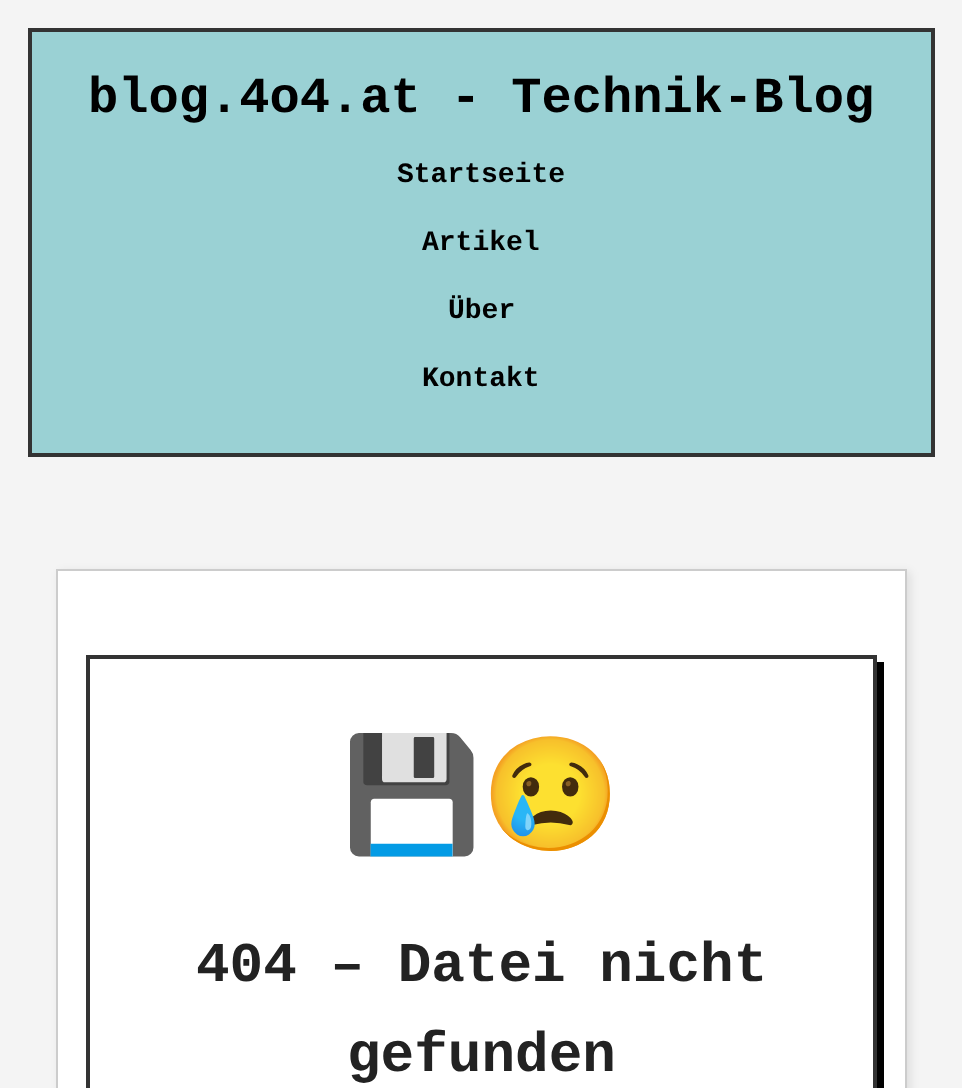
<?xml version="1.0" encoding="UTF-8"?>
<svg xmlns="http://www.w3.org/2000/svg" width="962" height="1088">
    <defs>
        <filter id="blur1" x="-50%" y="-200%" width="200%" height="500%"><feGaussianBlur stdDeviation="5"/></filter>
    </defs>
    <rect width="100%" height="100%" fill="#F4F4F4"/>
    <rect x="30" y="30" width="903" height="425" fill="#9AD1D4" stroke="#333333" stroke-width="4"/>
    <text x="88" y="112" font-family="Liberation Mono" font-size="50.4" font-weight="700" fill="#000000">blog.4o4.at - Technik-Blog</text>
    <text x="397" y="182" font-family="Liberation Mono" font-size="28" font-weight="700" fill="#000000">Startseite</text>
    <text x="422" y="250" font-family="Liberation Mono" font-size="28" font-weight="700" fill="#000000">Artikel</text>
    <text x="448" y="318" font-family="Liberation Mono" font-size="28" font-weight="700" fill="#000000">Über</text>
    <text x="422" y="386" font-family="Liberation Mono" font-size="28" font-weight="700" fill="#000000">Kontakt</text>
    <rect x="60" y="572" width="850" height="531" fill="#000000" fill-opacity="0.1" filter="url(#blur1)"/>
    <rect x="57" y="570" width="849" height="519" fill="#FFFFFF" stroke="#CCCCCC" stroke-width="2"/>
    <path d="M 93 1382 V 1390 H 884 V 662 H 877 V 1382 Z" fill="#000000"/>
    <rect x="88" y="657" width="787" height="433" fill="none" stroke="#333333" stroke-width="4"/>
    <text x="342" y="833" font-family="Noto Color Emoji" font-size="112" fill="#222222">💾😢</text>
    <text x="196" y="981" font-family="Liberation Mono" font-size="56" font-weight="700" fill="#222222">404 – Datei nicht</text>
    <text x="347" y="1071" font-family="Liberation Mono" font-size="56" font-weight="700" fill="#222222">gefunden</text>
</svg>
